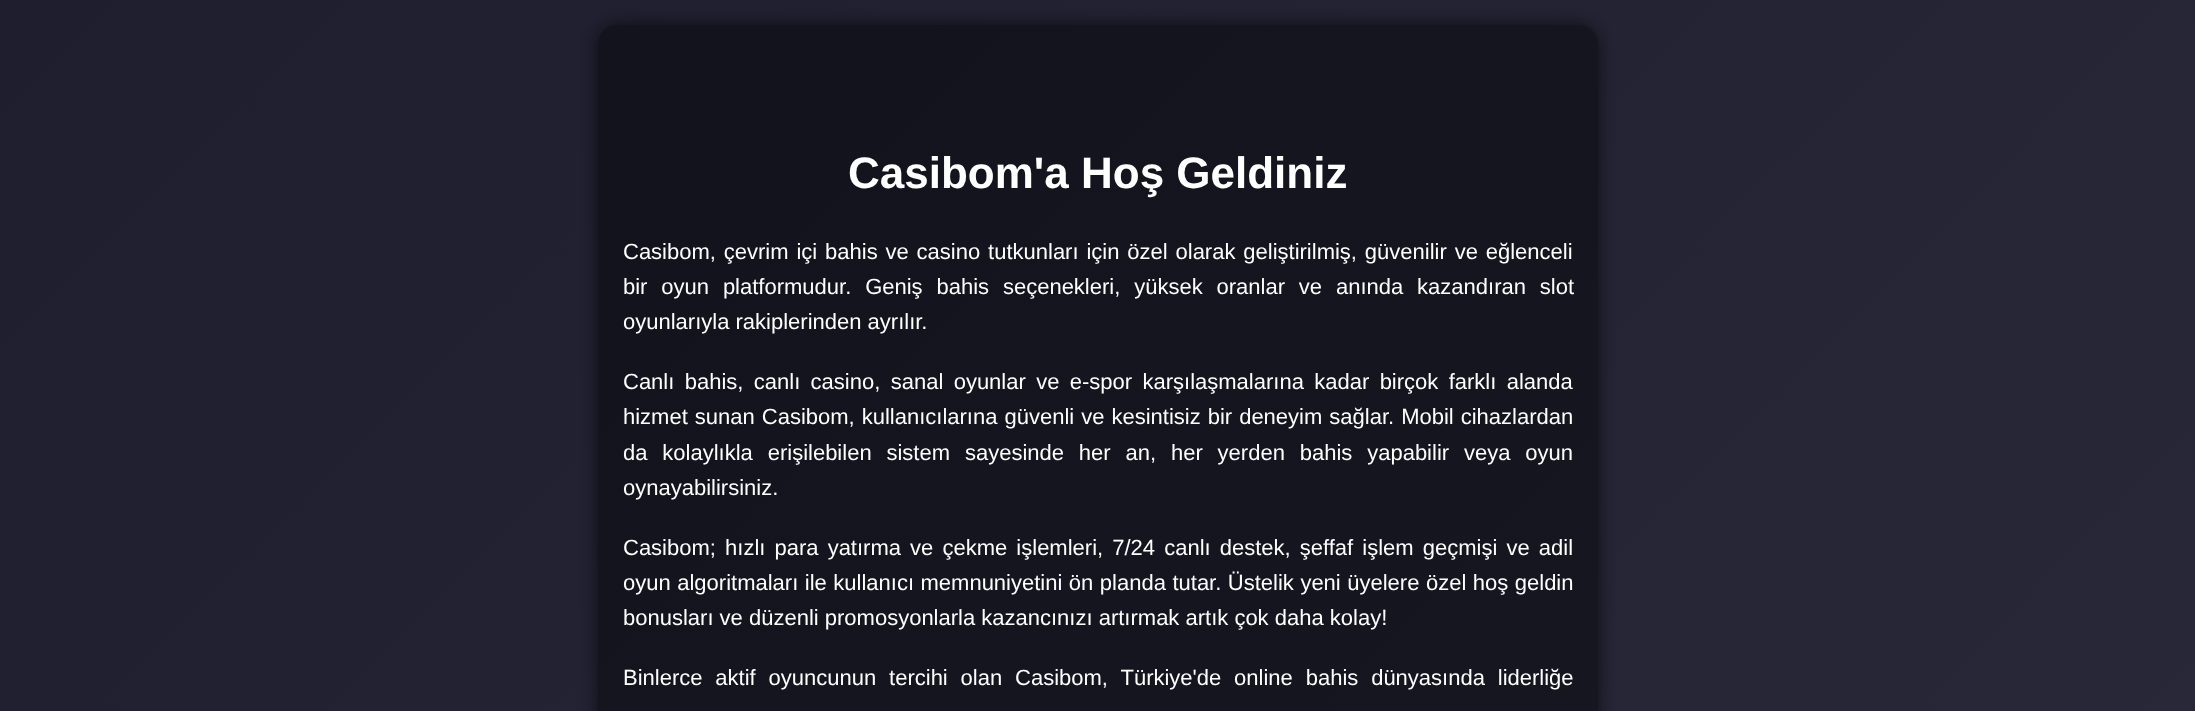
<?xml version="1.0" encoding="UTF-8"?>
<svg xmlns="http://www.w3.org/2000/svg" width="2195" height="711">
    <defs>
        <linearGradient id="g1" gradientUnits="userSpaceOnUse" x1="36" y1="-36" x2="2159" y2="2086"><stop offset="0" stop-color="#1E1E2F"/><stop offset="1" stop-color="#2C2C3D"/></linearGradient>
        <clipPath id="clip1"><path d="M 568 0 H 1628 V 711 H 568 Z M 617 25 H 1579 C 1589.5 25 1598 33.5 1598 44 V 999 C 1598 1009.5 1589.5 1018 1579 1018 H 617 C 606.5 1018 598 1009.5 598 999 V 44 C 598 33.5 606.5 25 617 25 Z" clip-rule="evenodd"/></clipPath>
        <filter id="blur1" x="-50%" y="-200%" width="200%" height="500%"><feGaussianBlur stdDeviation="9.5"/></filter>
    </defs>
    <rect width="100%" height="100%" fill="#FFFFFF"/>
    <rect x="0" y="0" width="2195" height="711" fill="url(#g1)"/>
    <g clip-path="url(#clip1)">
        <rect x="598" y="25" width="1000" height="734" rx="19" fill="#000000" fill-opacity="0.6" filter="url(#blur1)"/>
    </g>
    <rect x="598" y="25" width="1000" height="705" rx="19" fill="#000000" fill-opacity="0.4"/>
    <text x="848" y="188" font-family="Liberation Sans" font-size="44" font-weight="700" fill="#FFFFFF">Casibom'a Hoş Geldiniz</text>
    <text font-family="Liberation Sans" font-size="22" fill="#FFFFFF">
        <tspan x="623" y="259" word-spacing="1.75">Casibom, çevrim içi bahis ve casino tutkunları için özel olarak geliştirilmiş, güvenilir ve eğlenceli</tspan>
        <tspan x="623" y="294" word-spacing="7.75">bir oyun platformudur. Geniş bahis seçenekleri, yüksek oranlar ve anında kazandıran slot</tspan>
        <tspan x="623" y="329">oyunlarıyla rakiplerinden ayrılır.</tspan>
    </text>
    <text font-family="Liberation Sans" font-size="22" fill="#FFFFFF">
        <tspan x="623" y="389" word-spacing="4.25">Canlı bahis, canlı casino, sanal oyunlar ve e-spor karşılaşmalarına kadar birçok farklı alanda</tspan>
        <tspan x="623" y="424" word-spacing="0.9">hizmet sunan Casibom, kullanıcılarına güvenli ve kesintisiz bir deneyim sağlar. Mobil cihazlardan</tspan>
        <tspan x="623" y="460" word-spacing="8.75">da kolaylıkla erişilebilen sistem sayesinde her an, her yerden bahis yapabilir veya oyun</tspan>
        <tspan x="623" y="495">oynayabilirsiniz.</tspan>
    </text>
    <text font-family="Liberation Sans" font-size="22" fill="#FFFFFF">
        <tspan x="623" y="555" word-spacing="3">Casibom; hızlı para yatırma ve çekme işlemleri, 7/24 canlı destek, şeffaf işlem geçmişi ve adil</tspan>
        <tspan x="623" y="590" word-spacing="0.4">oyun algoritmaları ile kullanıcı memnuniyetini ön planda tutar. Üstelik yeni üyelere özel hoş geldin</tspan>
        <tspan x="623" y="625">bonusları ve düzenli promosyonlarla kazancınızı artırmak artık çok daha kolay!</tspan>
    </text>
    <text x="623" y="685" word-spacing="6.75" font-family="Liberation Sans" font-size="22" fill="#FFFFFF">Binlerce aktif oyuncunun tercihi olan Casibom, Türkiye'de online bahis dünyasında liderliğe</text>
</svg>
